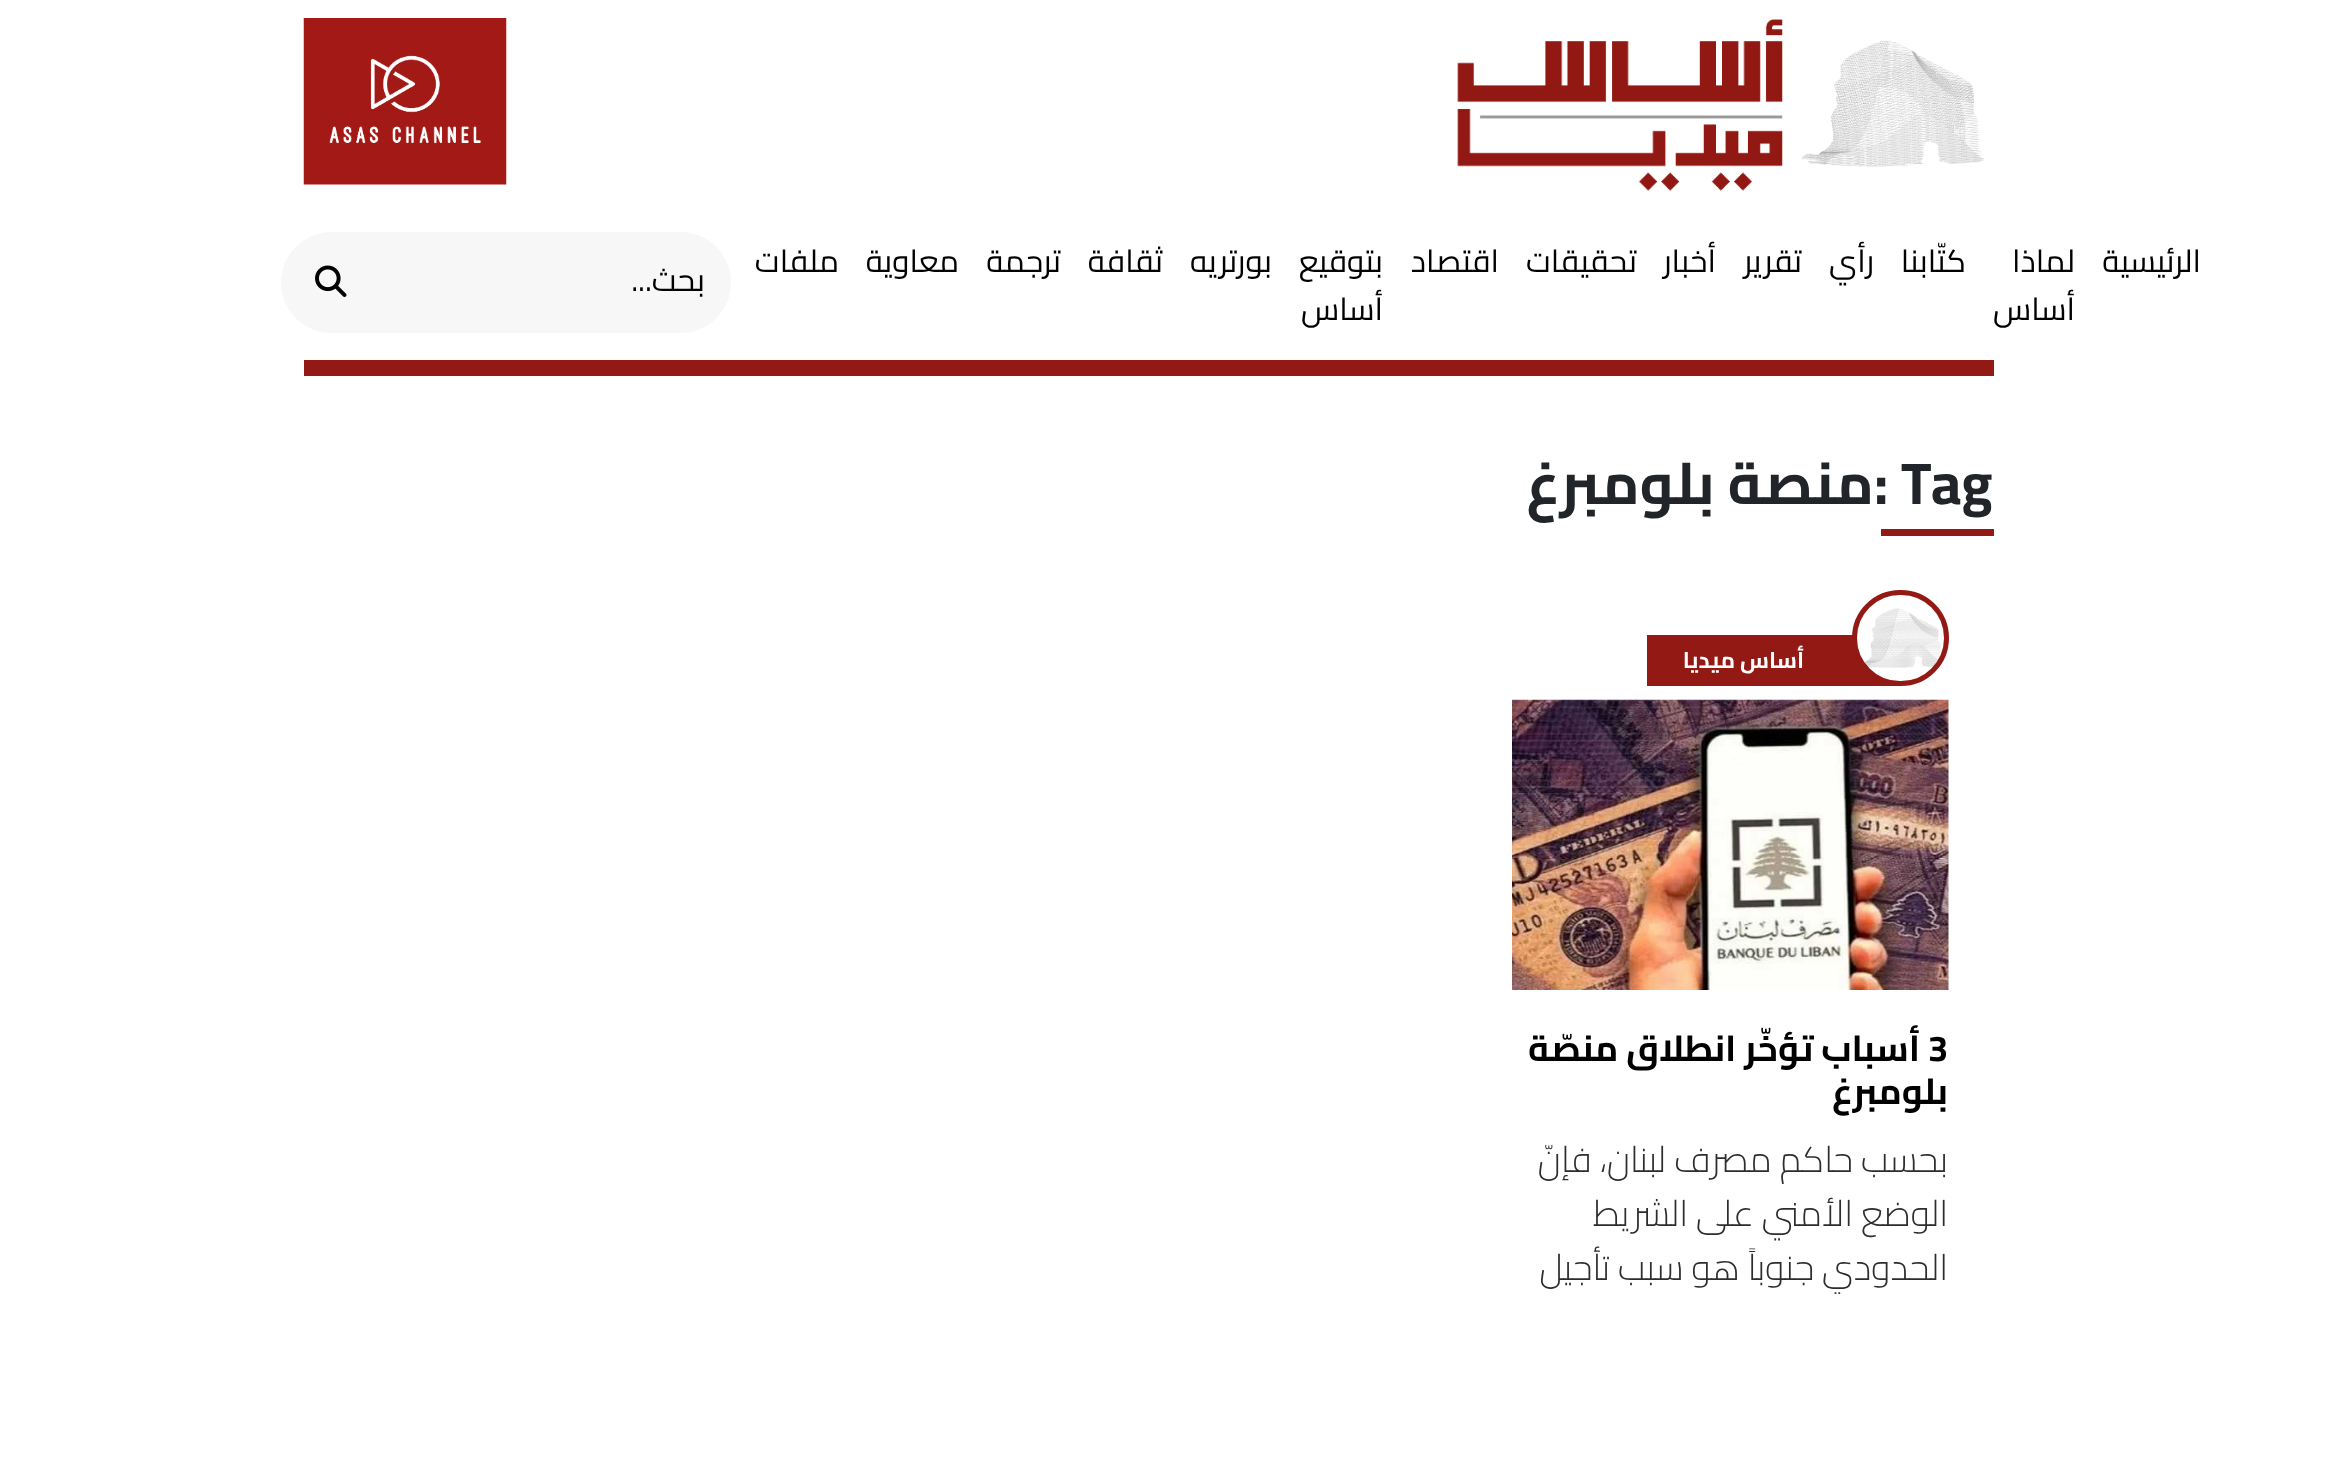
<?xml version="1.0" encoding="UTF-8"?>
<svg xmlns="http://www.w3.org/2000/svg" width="2344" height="1460">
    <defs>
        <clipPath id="clip1"><rect x="1512" y="1132" width="437" height="162"/></clipPath>
    </defs>
    <rect width="100%" height="100%" fill="#FFFFFF"/>
    <image x="1457" y="19" width="528" height="172" href="img_01.png"/>
    <image x="303" y="18" width="204" height="167" href="img_02.png"/>
    <rect x="304" y="360" width="1690" height="16" fill="#931914"/>
    <text x="2201" y="272" font-family="Cairo" font-size="31.5" direction="rtl" fill="#000000">الرئيسية</text>
    <text font-family="Cairo" font-size="31.5" direction="rtl" fill="#000000">
        <tspan x="2075" y="272">لماذا</tspan>
        <tspan x="2075" y="320">أساس</tspan>
    </text>
    <text x="1966" y="272" font-family="Cairo" font-size="31.5" direction="rtl" fill="#000000">كتّابنا</text>
    <text x="1874" y="272" font-family="Cairo" font-size="31.5" direction="rtl" fill="#000000">رأي</text>
    <text x="1802" y="272" font-family="Cairo" font-size="31.5" direction="rtl" fill="#000000">تقرير</text>
    <text x="1716" y="272" font-family="Cairo" font-size="31.5" direction="rtl" fill="#000000">أخبار</text>
    <text x="1637" y="272" font-family="Cairo" font-size="31.5" direction="rtl" fill="#000000">تحقيقات</text>
    <text x="1499" y="272" font-family="Cairo" font-size="31.5" direction="rtl" fill="#000000">اقتصاد</text>
    <text font-family="Cairo" font-size="31.5" direction="rtl" fill="#000000">
        <tspan x="1383" y="272">بتوقيع</tspan>
        <tspan x="1383" y="320">أساس</tspan>
    </text>
    <text x="1272" y="272" font-family="Cairo" font-size="31.5" direction="rtl" fill="#000000">بورتريه</text>
    <text x="1163" y="272" font-family="Cairo" font-size="31.5" direction="rtl" fill="#000000">ثقافة</text>
    <text x="1061" y="272" font-family="Cairo" font-size="31.5" direction="rtl" fill="#000000">ترجمة</text>
    <text x="959" y="272" font-family="Cairo" font-size="31.5" direction="rtl" fill="#000000">معاوية</text>
    <text x="839" y="272" font-family="Cairo" font-size="31.5" direction="rtl" fill="#000000">ملفات</text>
    <rect x="281" y="232" width="450" height="101" rx="50.5" fill="#F7F7F7"/>
    <text x="705" y="291" font-family="Cairo" font-size="31.5" direction="rtl" fill="#000000">بحث...</text>
    <image x="315" y="265" width="32" height="32" href="img_03.png"/>
    <text x="1874" y="504" font-family="Cairo" font-size="58.5" font-weight="700" fill="#212529">: Tag</text>
    <text x="1874" y="504" font-family="Cairo" font-size="58.5" font-weight="700" direction="rtl" fill="#212529">منصة بلومبرغ</text>
    <rect x="1881" y="529" width="113" height="7" fill="#931914"/>
    <rect x="1647" y="635" width="252" height="51" fill="#931914"/>
    <rect x="1854.5" y="592.5" width="92" height="91" rx="45.5" fill="#FFFFFF" stroke="#931914" stroke-width="5"/>
    <image x="1864" y="608" width="77" height="60" href="img_04.png"/>
    <text x="1804" y="668" font-family="Cairo" font-size="22.5" font-weight="700" direction="rtl" fill="#FFFFFF">أساس ميديا</text>
    <image x="1512" y="699" width="437" height="291" href="img_05.png"/>
    <text x="1928" y="1061" font-family="Cairo" font-size="36" font-weight="700" fill="#000000">3</text>
    <text x="1920" y="1061" font-family="Cairo" font-size="36" font-weight="700" direction="rtl" fill="#000000">أسباب تؤخّر انطلاق منصّة</text>
    <text x="1948" y="1104" font-family="Cairo" font-size="36" font-weight="700" direction="rtl" fill="#000000">بلومبرغ</text>
    <text font-family="Cairo" font-size="36" font-weight="300" direction="rtl" fill="#2D2D2D">
        <tspan x="1948" y="1172">بحسب حاكم مصرف لبنان، فإنّ</tspan>
        <tspan x="1948" y="1226">الوضع الأمني على الشريط</tspan>
    </text>
    <g clip-path="url(#clip1)">
        <text x="1948" y="1280" font-family="Cairo" font-size="36" font-weight="300" direction="rtl" fill="#2D2D2D">الحدودي جنوباً هو سبب تأجيل</text>
    </g>
</svg>
